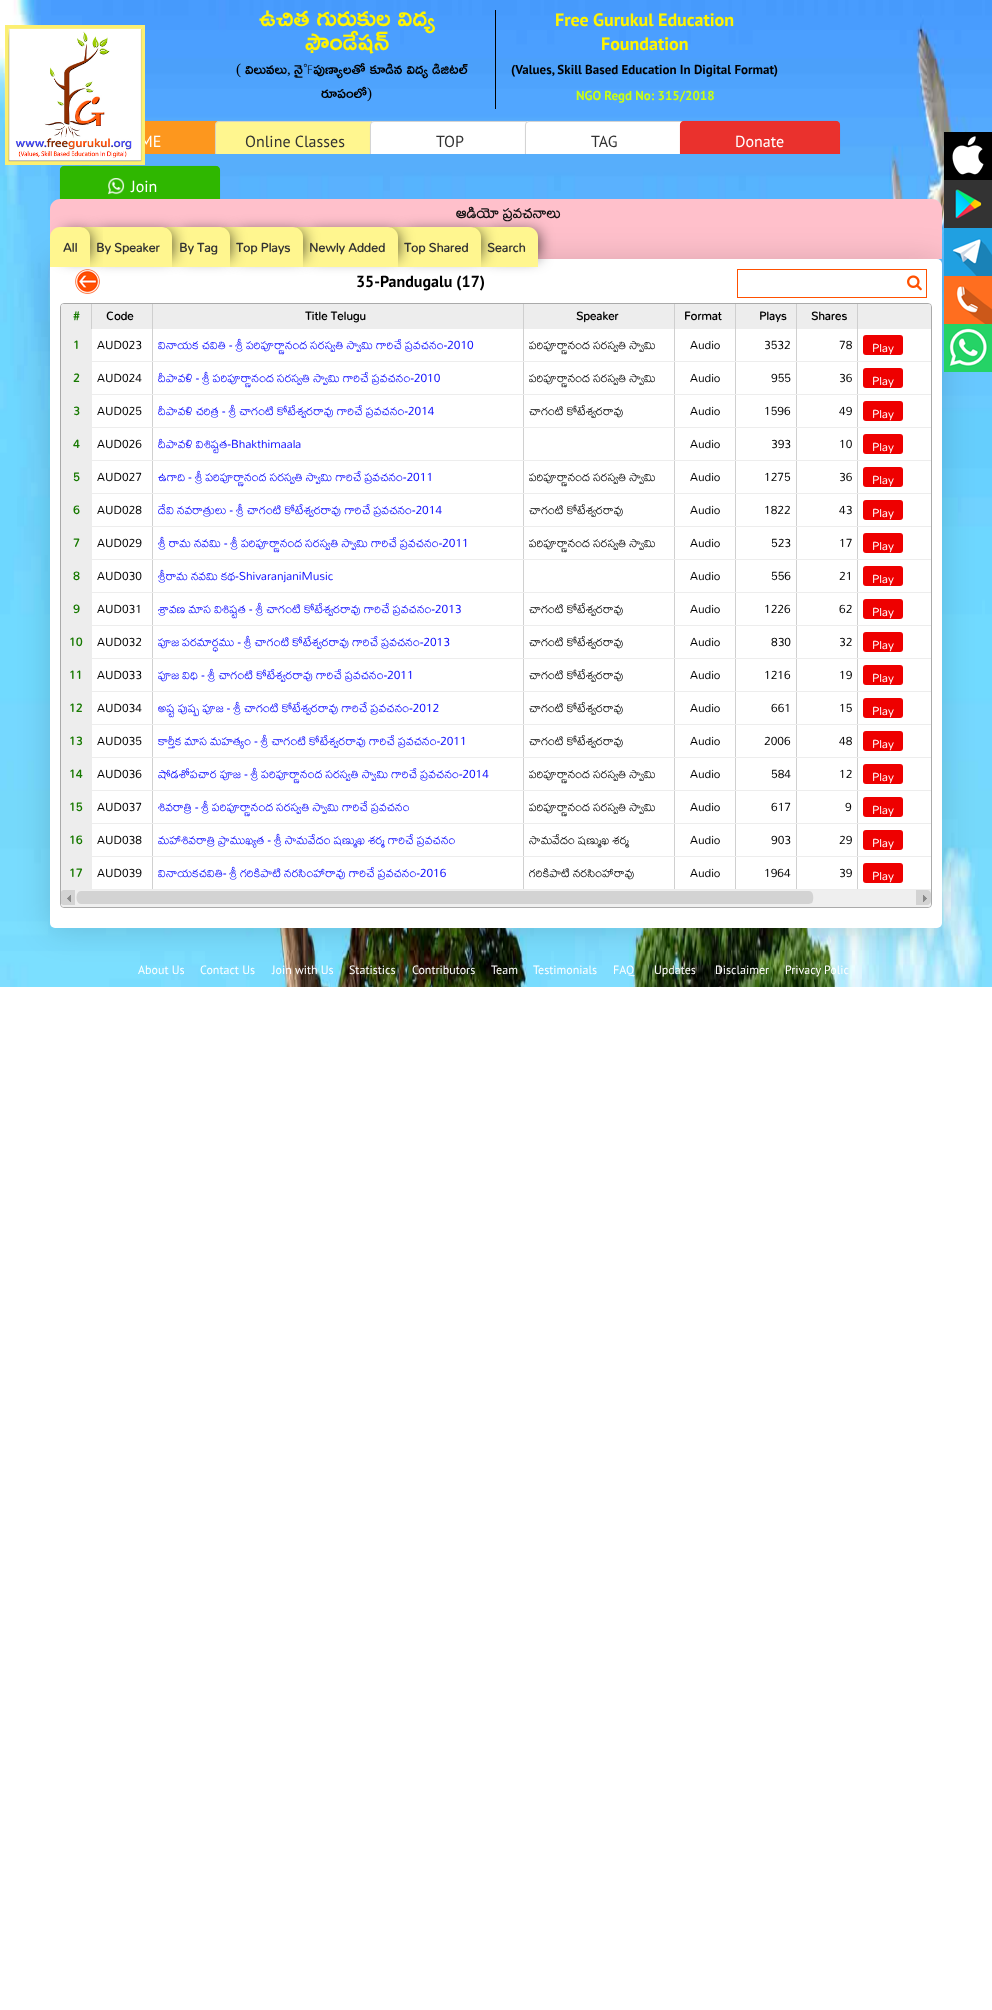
<?xml version="1.0" encoding="UTF-8"?>
<svg xmlns="http://www.w3.org/2000/svg" width="992" height="2010">
    <defs>
        <clipPath id="clip1"><rect x="40" y="109" width="200" height="45"/></clipPath>
        <clipPath id="clip2"><rect x="195" y="109" width="200" height="45"/></clipPath>
        <clipPath id="clip3"><rect x="350" y="109" width="200" height="45"/></clipPath>
        <clipPath id="clip4"><rect x="505" y="109" width="200" height="45"/></clipPath>
        <clipPath id="clip5"><rect x="660" y="109" width="200" height="45"/></clipPath>
        <clipPath id="clip6"><rect x="40" y="154" width="200" height="45"/></clipPath>
        <filter id="blur1" x="-50%" y="-200%" width="200%" height="500%"><feGaussianBlur stdDeviation="16.5"/></filter>
        <filter id="blur2" x="-50%" y="-200%" width="200%" height="500%"><feGaussianBlur stdDeviation="7.5"/></filter>
    </defs>
    <rect width="100%" height="100%" fill="#FFFFFF"/>
    <image x="0" y="0" width="992" height="987" href="img_01.png"/>
    <rect x="495" y="10" width="1" height="99" fill="#000000"/>
    <text x="259" y="26" font-family="Ramabhadra" font-size="26" fill="#FFF400">ఉచిత గురుకుల విద్య</text>
    <text x="305" y="50" font-family="Ramabhadra" font-size="26" fill="#FFF400">ఫౌండేషన్</text>
    <text x="236" y="74" font-family="Liberation Serif" font-size="15" fill="#000000">(</text>
    <text x="245" y="74" font-family="Ramabhadra" font-size="15" fill="#000000">విలువలు</text>
    <text x="287" y="74" font-family="Liberation Serif" font-size="15" fill="#000000">,</text>
    <text x="294" y="74" font-family="Ramabhadra" font-size="15" fill="#000000">నైపుణ్యాలతో కూడిన విద్య డిజిటల్</text>
    <text x="321" y="98" font-family="Ramabhadra" font-size="15" fill="#000000">రూపంలో</text>
    <text x="367" y="98" font-family="Liberation Serif" font-size="15" fill="#000000">)</text>
    <text x="555" y="26" font-family="PT Sans" font-size="18" font-weight="700" fill="#FFF400">Free Gurukul Education</text>
    <text x="601" y="50" font-family="PT Sans" font-size="18" font-weight="700" fill="#FFF400">Foundation</text>
    <text x="511" y="74" font-family="PT Sans" font-size="13" font-weight="700" fill="#000000">(Values, Skill Based Education In Digital Format)</text>
    <text x="576" y="100" font-family="PT Sans" font-size="13" font-weight="700" fill="#CAFF12">NGO Regd No: 315/2018</text>
    <path d="M 64 121 H 216 C 218 121 220 123 220 125 V 154 H 60 V 125 C 60 123 62 121 64 121 Z" fill="#FD971E"/>
    <g clip-path="url(#clip1)">
        <rect x="60.45" y="121.45" width="159.1" height="43.1" rx="3.55" fill="none" stroke="#FD971E" stroke-width="0.9"/>
    </g>
    <text x="140" y="147" font-family="PT Sans" font-size="16" fill="#FFFFFF">ME</text>
    <path d="M 219 121 H 371 C 373 121 375 123 375 125 V 154 H 215 V 125 C 215 123 217 121 219 121 Z" fill="#FFF68F"/>
    <g clip-path="url(#clip2)">
        <rect x="215.45" y="121.45" width="159.1" height="43.1" rx="3.55" fill="none" stroke="#CCCCCC" stroke-width="0.9"/>
    </g>
    <text x="245" y="147" font-family="PT Sans" font-size="16" fill="#333333">Online Classes</text>
    <path d="M 374 121 H 526 C 528 121 530 123 530 125 V 154 H 370 V 125 C 370 123 372 121 374 121 Z" fill="#FFFFFF"/>
    <g clip-path="url(#clip3)">
        <rect x="370.45" y="121.45" width="159.1" height="43.1" rx="3.55" fill="none" stroke="#CCCCCC" stroke-width="0.9"/>
    </g>
    <text x="436" y="147" font-family="PT Sans" font-size="16" fill="#333333">TOP</text>
    <path d="M 529 121 H 681 C 683 121 685 123 685 125 V 154 H 525 V 125 C 525 123 527 121 529 121 Z" fill="#FFFFFF"/>
    <g clip-path="url(#clip4)">
        <rect x="525.45" y="121.45" width="159.1" height="43.1" rx="3.55" fill="none" stroke="#CCCCCC" stroke-width="0.9"/>
    </g>
    <text x="591" y="147" font-family="PT Sans" font-size="16" fill="#333333">TAG</text>
    <path d="M 684 121 H 836 C 838 121 840 123 840 125 V 154 H 680 V 125 C 680 123 682 121 684 121 Z" fill="#EA312D"/>
    <g clip-path="url(#clip5)">
        <rect x="680.45" y="121.45" width="159.1" height="43.1" rx="3.55" fill="none" stroke="#EA312D" stroke-width="0.9"/>
    </g>
    <text x="735" y="147" font-family="PT Sans" font-size="16" fill="#FFFFFF">Donate</text>
    <path d="M 64 166 H 216 C 218 166 220 168 220 170 V 199 H 60 V 170 C 60 168 62 166 64 166 Z" fill="#2FB700"/>
    <path d="M 60 199 H 932 C 937.5 199 942 203.5 942 209 V 259 H 50 V 209 C 50 203.5 54.5 199 60 199 Z" fill="#FFC0CB"/>
    <g clip-path="url(#clip6)">
        <rect x="60.45" y="166.45" width="159.1" height="43.1" rx="3.55" fill="none" stroke="#2FB700" stroke-width="0.9"/>
    </g>
    <image x="108" y="178" width="17" height="17" href="img_02.png"/>
    <text x="131" y="192" font-family="PT Sans" font-size="16" fill="#FFFFFF">Join</text>
    <text x="456" y="218" font-family="Mallanna" font-size="16" font-weight="700" fill="#111111">ఆడియో ప్రవచనాలు</text>
    <rect x="50" y="260" width="892" height="669" rx="5" fill="#000000" fill-opacity="0.15" filter="url(#blur1)"/>
    <rect x="50" y="259" width="892" height="669" rx="5" fill="#FFFFFF"/>
    <rect x="488" y="232" width="50" height="26" rx="3" fill="#000000" fill-opacity="0.75" filter="url(#blur2)"/>
    <path d="M 474 227 H 528 C 533.5 227 538 231.5 538 237 V 267 H 474 Z" fill="#FFF68F"/>
    <rect x="405" y="232" width="76" height="26" rx="3" fill="#000000" fill-opacity="0.75" filter="url(#blur2)"/>
    <path d="M 391 227 H 471 C 476.5 227 481 231.5 481 237 V 267 H 391 Z" fill="#FFF68F"/>
    <rect x="310" y="232" width="88" height="26" rx="3" fill="#000000" fill-opacity="0.75" filter="url(#blur2)"/>
    <path d="M 296 227 H 388 C 393.5 227 398 231.5 398 237 V 267 H 296 Z" fill="#FFF68F"/>
    <rect x="237" y="232" width="66" height="26" rx="3" fill="#000000" fill-opacity="0.75" filter="url(#blur2)"/>
    <path d="M 223 227 H 293 C 298.5 227 303 231.5 303 237 V 267 H 223 Z" fill="#FFF68F"/>
    <rect x="180" y="232" width="50" height="26" rx="3" fill="#000000" fill-opacity="0.75" filter="url(#blur2)"/>
    <path d="M 166 227 H 220 C 225.5 227 230 231.5 230 237 V 267 H 166 Z" fill="#FFF68F"/>
    <image x="75" y="269" width="25" height="25" href="img_03.png"/>
    <rect x="97" y="232" width="75" height="26" rx="3" fill="#000000" fill-opacity="0.75" filter="url(#blur2)"/>
    <path d="M 83 227 H 162 C 167.5 227 172 231.5 172 237 V 267 H 83 Z" fill="#FFF68F"/>
    <rect x="64" y="232" width="26" height="26" rx="3" fill="#000000" fill-opacity="0.75" filter="url(#blur2)"/>
    <path d="M 60 227 H 80 C 85.5 227 90 231.5 90 237 V 267 H 50 V 237 C 50 231.5 54.5 227 60 227 Z" fill="#FFF68F"/>
    <text x="63" y="252" font-family="Mallanna" font-size="14" font-weight="700" fill="#333333">All</text>
    <text x="96" y="252" font-family="Mallanna" font-size="14" font-weight="700" fill="#333333">By Speaker</text>
    <text x="179" y="252" font-family="Mallanna" font-size="14" font-weight="700" fill="#333333">By Tag</text>
    <text x="236" y="252" font-family="Mallanna" font-size="14" font-weight="700" fill="#333333">Top Plays</text>
    <text x="309" y="252" font-family="Mallanna" font-size="14" font-weight="700" fill="#333333">Newly Added</text>
    <text x="404" y="252" font-family="Mallanna" font-size="14" font-weight="700" fill="#333333">Top Shared</text>
    <text x="487" y="252" font-family="Mallanna" font-size="14" font-weight="700" fill="#333333">Search</text>
    <text x="356" y="287" font-family="PT Sans" font-size="16" font-weight="700" fill="#000000">35-Pandugalu (17)</text>
    <rect x="737.5" y="269.5" width="189" height="28" fill="none" stroke="#FF5000"/>
    <image x="907" y="275" width="15" height="16" href="img_04.png"/>
    <rect x="60.5" y="303.5" width="871" height="604" rx="3.5" fill="none" stroke="#AAAAAA"/>
    <image x="61" y="304" width="870" height="3" href="img_05.png"/>
    <path d="M 64 304 H 928 C 929.5 304 931 305.5 931 307 V 329 H 61 V 307 C 61 305.5 62.5 304 64 304 Z" fill="#EDEDED"/>
    <path d="M 64 304 H 92 V 329 H 61 V 307 C 61 305.5 62.5 304 64 304 Z" fill="#EDEDED"/>
    <rect x="91" y="304" width="1" height="25" fill="#CFCFCF"/>
    <text x="73" y="320" font-family="Mallanna" font-size="13" font-weight="700" fill="#177900">#</text>
    <rect x="152" y="304" width="1" height="25" fill="#CFCFCF"/>
    <text x="106" y="320" font-family="Mallanna" font-size="13" font-weight="700" fill="#000000">Code</text>
    <rect x="523" y="304" width="1" height="25" fill="#CFCFCF"/>
    <text x="305" y="320" font-family="Mallanna" font-size="13" font-weight="700" fill="#000000">Title Telugu</text>
    <rect x="674" y="304" width="1" height="25" fill="#CFCFCF"/>
    <text x="576" y="320" font-family="Mallanna" font-size="13" font-weight="700" fill="#000000">Speaker</text>
    <rect x="735" y="304" width="1" height="25" fill="#CFCFCF"/>
    <text x="684" y="320" font-family="Mallanna" font-size="13" font-weight="700" fill="#000000">Format</text>
    <rect x="796" y="304" width="1" height="25" fill="#CFCFCF"/>
    <text x="759" y="320" font-family="Mallanna" font-size="13" font-weight="700" fill="#000000">Plays</text>
    <rect x="857" y="304" width="1" height="25" fill="#CFCFCF"/>
    <text x="811" y="320" font-family="Mallanna" font-size="13" font-weight="700" fill="#000000">Shares</text>
    <rect x="61" y="329" width="31" height="561" fill="#EDEDED"/>
    <text x="73" y="349" font-family="Mallanna" font-size="13" font-weight="700" fill="#177900">1</text>
    <text x="73" y="382" font-family="Mallanna" font-size="13" font-weight="700" fill="#177900">2</text>
    <text x="73" y="415" font-family="Mallanna" font-size="13" font-weight="700" fill="#177900">3</text>
    <text x="73" y="448" font-family="Mallanna" font-size="13" font-weight="700" fill="#177900">4</text>
    <text x="73" y="481" font-family="Mallanna" font-size="13" font-weight="700" fill="#177900">5</text>
    <text x="73" y="514" font-family="Mallanna" font-size="13" font-weight="700" fill="#177900">6</text>
    <text x="73" y="547" font-family="Mallanna" font-size="13" font-weight="700" fill="#177900">7</text>
    <text x="73" y="580" font-family="Mallanna" font-size="13" font-weight="700" fill="#177900">8</text>
    <text x="73" y="613" font-family="Mallanna" font-size="13" font-weight="700" fill="#177900">9</text>
    <text x="69" y="646" font-family="Mallanna" font-size="13" font-weight="700" fill="#177900">10</text>
    <text x="69" y="679" font-family="Mallanna" font-size="13" font-weight="700" fill="#177900">11</text>
    <text x="69" y="712" font-family="Mallanna" font-size="13" font-weight="700" fill="#177900">12</text>
    <text x="69" y="745" font-family="Mallanna" font-size="13" font-weight="700" fill="#177900">13</text>
    <text x="69" y="778" font-family="Mallanna" font-size="13" font-weight="700" fill="#177900">14</text>
    <text x="69" y="811" font-family="Mallanna" font-size="13" font-weight="700" fill="#177900">15</text>
    <text x="69" y="844" font-family="Mallanna" font-size="13" font-weight="700" fill="#177900">16</text>
    <text x="69" y="877" font-family="Mallanna" font-size="13" font-weight="700" fill="#177900">17</text>
    <rect x="857" y="889" width="74" height="1" fill="#EDEDED"/>
    <rect x="857" y="856" width="1" height="34" fill="#D0D0D0"/>
    <rect x="857" y="856" width="74" height="1" fill="#EDEDED"/>
    <rect x="857" y="823" width="1" height="34" fill="#D0D0D0"/>
    <rect x="857" y="823" width="74" height="1" fill="#EDEDED"/>
    <rect x="857" y="790" width="1" height="34" fill="#D0D0D0"/>
    <rect x="857" y="790" width="74" height="1" fill="#EDEDED"/>
    <rect x="857" y="757" width="1" height="34" fill="#D0D0D0"/>
    <rect x="857" y="757" width="74" height="1" fill="#EDEDED"/>
    <rect x="857" y="724" width="1" height="34" fill="#D0D0D0"/>
    <rect x="857" y="724" width="74" height="1" fill="#EDEDED"/>
    <rect x="857" y="691" width="1" height="34" fill="#D0D0D0"/>
    <rect x="857" y="691" width="74" height="1" fill="#EDEDED"/>
    <rect x="857" y="658" width="1" height="34" fill="#D0D0D0"/>
    <rect x="857" y="658" width="74" height="1" fill="#EDEDED"/>
    <rect x="857" y="625" width="1" height="34" fill="#D0D0D0"/>
    <rect x="857" y="625" width="74" height="1" fill="#EDEDED"/>
    <rect x="857" y="592" width="1" height="34" fill="#D0D0D0"/>
    <rect x="857" y="592" width="74" height="1" fill="#EDEDED"/>
    <rect x="857" y="559" width="1" height="34" fill="#D0D0D0"/>
    <rect x="857" y="559" width="74" height="1" fill="#EDEDED"/>
    <rect x="857" y="526" width="1" height="34" fill="#D0D0D0"/>
    <rect x="857" y="526" width="74" height="1" fill="#EDEDED"/>
    <rect x="857" y="493" width="1" height="34" fill="#D0D0D0"/>
    <rect x="857" y="493" width="74" height="1" fill="#EDEDED"/>
    <rect x="857" y="460" width="1" height="34" fill="#D0D0D0"/>
    <rect x="857" y="460" width="74" height="1" fill="#EDEDED"/>
    <rect x="857" y="427" width="1" height="34" fill="#D0D0D0"/>
    <rect x="857" y="427" width="74" height="1" fill="#EDEDED"/>
    <rect x="857" y="394" width="1" height="34" fill="#D0D0D0"/>
    <rect x="857" y="394" width="74" height="1" fill="#EDEDED"/>
    <rect x="857" y="361" width="1" height="34" fill="#D0D0D0"/>
    <rect x="857" y="361" width="74" height="1" fill="#EDEDED"/>
    <rect x="857" y="329" width="1" height="33" fill="#D0D0D0"/>
    <rect x="796" y="889" width="62" height="1" fill="#EDEDED"/>
    <rect x="796" y="856" width="1" height="34" fill="#D0D0D0"/>
    <rect x="796" y="856" width="62" height="1" fill="#EDEDED"/>
    <rect x="796" y="823" width="1" height="34" fill="#D0D0D0"/>
    <rect x="796" y="823" width="62" height="1" fill="#EDEDED"/>
    <rect x="796" y="790" width="1" height="34" fill="#D0D0D0"/>
    <rect x="796" y="790" width="62" height="1" fill="#EDEDED"/>
    <rect x="796" y="757" width="1" height="34" fill="#D0D0D0"/>
    <rect x="796" y="757" width="62" height="1" fill="#EDEDED"/>
    <rect x="796" y="724" width="1" height="34" fill="#D0D0D0"/>
    <rect x="796" y="724" width="62" height="1" fill="#EDEDED"/>
    <rect x="796" y="691" width="1" height="34" fill="#D0D0D0"/>
    <rect x="796" y="691" width="62" height="1" fill="#EDEDED"/>
    <rect x="796" y="658" width="1" height="34" fill="#D0D0D0"/>
    <rect x="796" y="658" width="62" height="1" fill="#EDEDED"/>
    <rect x="796" y="625" width="1" height="34" fill="#D0D0D0"/>
    <rect x="796" y="625" width="62" height="1" fill="#EDEDED"/>
    <rect x="796" y="592" width="1" height="34" fill="#D0D0D0"/>
    <rect x="796" y="592" width="62" height="1" fill="#EDEDED"/>
    <rect x="796" y="559" width="1" height="34" fill="#D0D0D0"/>
    <rect x="796" y="559" width="62" height="1" fill="#EDEDED"/>
    <rect x="796" y="526" width="1" height="34" fill="#D0D0D0"/>
    <rect x="796" y="526" width="62" height="1" fill="#EDEDED"/>
    <rect x="796" y="493" width="1" height="34" fill="#D0D0D0"/>
    <rect x="796" y="493" width="62" height="1" fill="#EDEDED"/>
    <rect x="796" y="460" width="1" height="34" fill="#D0D0D0"/>
    <rect x="796" y="460" width="62" height="1" fill="#EDEDED"/>
    <rect x="796" y="427" width="1" height="34" fill="#D0D0D0"/>
    <rect x="796" y="427" width="62" height="1" fill="#EDEDED"/>
    <rect x="796" y="394" width="1" height="34" fill="#D0D0D0"/>
    <rect x="796" y="394" width="62" height="1" fill="#EDEDED"/>
    <rect x="796" y="361" width="1" height="34" fill="#D0D0D0"/>
    <rect x="796" y="361" width="62" height="1" fill="#EDEDED"/>
    <rect x="796" y="329" width="1" height="33" fill="#D0D0D0"/>
    <rect x="735" y="889" width="62" height="1" fill="#EDEDED"/>
    <rect x="735" y="856" width="1" height="34" fill="#D0D0D0"/>
    <rect x="735" y="856" width="62" height="1" fill="#EDEDED"/>
    <rect x="735" y="823" width="1" height="34" fill="#D0D0D0"/>
    <rect x="735" y="823" width="62" height="1" fill="#EDEDED"/>
    <rect x="735" y="790" width="1" height="34" fill="#D0D0D0"/>
    <rect x="735" y="790" width="62" height="1" fill="#EDEDED"/>
    <rect x="735" y="757" width="1" height="34" fill="#D0D0D0"/>
    <rect x="735" y="757" width="62" height="1" fill="#EDEDED"/>
    <rect x="735" y="724" width="1" height="34" fill="#D0D0D0"/>
    <rect x="735" y="724" width="62" height="1" fill="#EDEDED"/>
    <rect x="735" y="691" width="1" height="34" fill="#D0D0D0"/>
    <rect x="735" y="691" width="62" height="1" fill="#EDEDED"/>
    <rect x="735" y="658" width="1" height="34" fill="#D0D0D0"/>
    <rect x="735" y="658" width="62" height="1" fill="#EDEDED"/>
    <rect x="735" y="625" width="1" height="34" fill="#D0D0D0"/>
    <rect x="735" y="625" width="62" height="1" fill="#EDEDED"/>
    <rect x="735" y="592" width="1" height="34" fill="#D0D0D0"/>
    <rect x="735" y="592" width="62" height="1" fill="#EDEDED"/>
    <rect x="735" y="559" width="1" height="34" fill="#D0D0D0"/>
    <rect x="735" y="559" width="62" height="1" fill="#EDEDED"/>
    <rect x="735" y="526" width="1" height="34" fill="#D0D0D0"/>
    <rect x="735" y="526" width="62" height="1" fill="#EDEDED"/>
    <rect x="735" y="493" width="1" height="34" fill="#D0D0D0"/>
    <rect x="735" y="493" width="62" height="1" fill="#EDEDED"/>
    <rect x="735" y="460" width="1" height="34" fill="#D0D0D0"/>
    <rect x="735" y="460" width="62" height="1" fill="#EDEDED"/>
    <rect x="735" y="427" width="1" height="34" fill="#D0D0D0"/>
    <rect x="735" y="427" width="62" height="1" fill="#EDEDED"/>
    <rect x="735" y="394" width="1" height="34" fill="#D0D0D0"/>
    <rect x="735" y="394" width="62" height="1" fill="#EDEDED"/>
    <rect x="735" y="361" width="1" height="34" fill="#D0D0D0"/>
    <rect x="735" y="361" width="62" height="1" fill="#EDEDED"/>
    <rect x="735" y="329" width="1" height="33" fill="#D0D0D0"/>
    <rect x="674" y="889" width="62" height="1" fill="#EDEDED"/>
    <rect x="674" y="856" width="1" height="34" fill="#D0D0D0"/>
    <rect x="674" y="856" width="62" height="1" fill="#EDEDED"/>
    <rect x="674" y="823" width="1" height="34" fill="#D0D0D0"/>
    <rect x="674" y="823" width="62" height="1" fill="#EDEDED"/>
    <rect x="674" y="790" width="1" height="34" fill="#D0D0D0"/>
    <rect x="674" y="790" width="62" height="1" fill="#EDEDED"/>
    <rect x="674" y="757" width="1" height="34" fill="#D0D0D0"/>
    <rect x="674" y="757" width="62" height="1" fill="#EDEDED"/>
    <rect x="674" y="724" width="1" height="34" fill="#D0D0D0"/>
    <rect x="674" y="724" width="62" height="1" fill="#EDEDED"/>
    <rect x="674" y="691" width="1" height="34" fill="#D0D0D0"/>
    <rect x="674" y="691" width="62" height="1" fill="#EDEDED"/>
    <rect x="674" y="658" width="1" height="34" fill="#D0D0D0"/>
    <rect x="674" y="658" width="62" height="1" fill="#EDEDED"/>
    <rect x="674" y="625" width="1" height="34" fill="#D0D0D0"/>
    <rect x="674" y="625" width="62" height="1" fill="#EDEDED"/>
    <rect x="674" y="592" width="1" height="34" fill="#D0D0D0"/>
    <rect x="674" y="592" width="62" height="1" fill="#EDEDED"/>
    <rect x="674" y="559" width="1" height="34" fill="#D0D0D0"/>
    <rect x="674" y="559" width="62" height="1" fill="#EDEDED"/>
    <rect x="674" y="526" width="1" height="34" fill="#D0D0D0"/>
    <rect x="674" y="526" width="62" height="1" fill="#EDEDED"/>
    <rect x="674" y="493" width="1" height="34" fill="#D0D0D0"/>
    <rect x="674" y="493" width="62" height="1" fill="#EDEDED"/>
    <rect x="674" y="460" width="1" height="34" fill="#D0D0D0"/>
    <rect x="674" y="460" width="62" height="1" fill="#EDEDED"/>
    <rect x="674" y="427" width="1" height="34" fill="#D0D0D0"/>
    <rect x="674" y="427" width="62" height="1" fill="#EDEDED"/>
    <rect x="674" y="394" width="1" height="34" fill="#D0D0D0"/>
    <rect x="674" y="394" width="62" height="1" fill="#EDEDED"/>
    <rect x="674" y="361" width="1" height="34" fill="#D0D0D0"/>
    <rect x="674" y="361" width="62" height="1" fill="#EDEDED"/>
    <rect x="674" y="329" width="1" height="33" fill="#D0D0D0"/>
    <rect x="523" y="889" width="152" height="1" fill="#EDEDED"/>
    <rect x="523" y="856" width="1" height="34" fill="#D0D0D0"/>
    <rect x="523" y="856" width="152" height="1" fill="#EDEDED"/>
    <rect x="523" y="823" width="1" height="34" fill="#D0D0D0"/>
    <rect x="523" y="823" width="152" height="1" fill="#EDEDED"/>
    <rect x="523" y="790" width="1" height="34" fill="#D0D0D0"/>
    <rect x="523" y="790" width="152" height="1" fill="#EDEDED"/>
    <rect x="523" y="757" width="1" height="34" fill="#D0D0D0"/>
    <rect x="523" y="757" width="152" height="1" fill="#EDEDED"/>
    <rect x="523" y="724" width="1" height="34" fill="#D0D0D0"/>
    <rect x="523" y="724" width="152" height="1" fill="#EDEDED"/>
    <rect x="523" y="691" width="1" height="34" fill="#D0D0D0"/>
    <rect x="523" y="691" width="152" height="1" fill="#EDEDED"/>
    <rect x="523" y="658" width="1" height="34" fill="#D0D0D0"/>
    <rect x="523" y="658" width="152" height="1" fill="#EDEDED"/>
    <rect x="523" y="625" width="1" height="34" fill="#D0D0D0"/>
    <rect x="523" y="625" width="152" height="1" fill="#EDEDED"/>
    <rect x="523" y="592" width="1" height="34" fill="#D0D0D0"/>
    <rect x="523" y="592" width="152" height="1" fill="#EDEDED"/>
    <rect x="523" y="559" width="1" height="34" fill="#D0D0D0"/>
    <rect x="523" y="559" width="152" height="1" fill="#EDEDED"/>
    <rect x="523" y="526" width="1" height="34" fill="#D0D0D0"/>
    <rect x="523" y="526" width="152" height="1" fill="#EDEDED"/>
    <rect x="523" y="493" width="1" height="34" fill="#D0D0D0"/>
    <rect x="523" y="493" width="152" height="1" fill="#EDEDED"/>
    <rect x="523" y="460" width="1" height="34" fill="#D0D0D0"/>
    <rect x="523" y="460" width="152" height="1" fill="#EDEDED"/>
    <rect x="523" y="427" width="1" height="34" fill="#D0D0D0"/>
    <rect x="523" y="427" width="152" height="1" fill="#EDEDED"/>
    <rect x="523" y="394" width="1" height="34" fill="#D0D0D0"/>
    <rect x="523" y="394" width="152" height="1" fill="#EDEDED"/>
    <rect x="523" y="361" width="1" height="34" fill="#D0D0D0"/>
    <rect x="523" y="361" width="152" height="1" fill="#EDEDED"/>
    <rect x="523" y="329" width="1" height="33" fill="#D0D0D0"/>
    <rect x="152" y="889" width="372" height="1" fill="#EDEDED"/>
    <rect x="152" y="856" width="1" height="34" fill="#D0D0D0"/>
    <rect x="152" y="856" width="372" height="1" fill="#EDEDED"/>
    <rect x="152" y="823" width="1" height="34" fill="#D0D0D0"/>
    <rect x="152" y="823" width="372" height="1" fill="#EDEDED"/>
    <rect x="152" y="790" width="1" height="34" fill="#D0D0D0"/>
    <rect x="152" y="790" width="372" height="1" fill="#EDEDED"/>
    <rect x="152" y="757" width="1" height="34" fill="#D0D0D0"/>
    <rect x="152" y="757" width="372" height="1" fill="#EDEDED"/>
    <rect x="152" y="724" width="1" height="34" fill="#D0D0D0"/>
    <rect x="152" y="724" width="372" height="1" fill="#EDEDED"/>
    <rect x="152" y="691" width="1" height="34" fill="#D0D0D0"/>
    <rect x="152" y="691" width="372" height="1" fill="#EDEDED"/>
    <rect x="152" y="658" width="1" height="34" fill="#D0D0D0"/>
    <rect x="152" y="658" width="372" height="1" fill="#EDEDED"/>
    <rect x="152" y="625" width="1" height="34" fill="#D0D0D0"/>
    <rect x="152" y="625" width="372" height="1" fill="#EDEDED"/>
    <rect x="152" y="592" width="1" height="34" fill="#D0D0D0"/>
    <rect x="152" y="592" width="372" height="1" fill="#EDEDED"/>
    <rect x="152" y="559" width="1" height="34" fill="#D0D0D0"/>
    <rect x="152" y="559" width="372" height="1" fill="#EDEDED"/>
    <rect x="152" y="526" width="1" height="34" fill="#D0D0D0"/>
    <rect x="152" y="526" width="372" height="1" fill="#EDEDED"/>
    <rect x="152" y="493" width="1" height="34" fill="#D0D0D0"/>
    <rect x="152" y="493" width="372" height="1" fill="#EDEDED"/>
    <rect x="152" y="460" width="1" height="34" fill="#D0D0D0"/>
    <rect x="152" y="460" width="372" height="1" fill="#EDEDED"/>
    <rect x="152" y="427" width="1" height="34" fill="#D0D0D0"/>
    <rect x="152" y="427" width="372" height="1" fill="#EDEDED"/>
    <rect x="152" y="394" width="1" height="34" fill="#D0D0D0"/>
    <rect x="152" y="394" width="372" height="1" fill="#EDEDED"/>
    <rect x="152" y="361" width="1" height="34" fill="#D0D0D0"/>
    <rect x="152" y="361" width="372" height="1" fill="#EDEDED"/>
    <rect x="152" y="329" width="1" height="33" fill="#D0D0D0"/>
    <rect x="92" y="361" width="61" height="1" fill="#EDEDED"/>
    <text x="97" y="349" font-family="Mallanna" font-size="13" fill="#000000">AUD023</text>
    <text x="158" y="349" font-family="Mallanna" font-size="13" fill="#0A0AFF">వినాయక చవితి - శ్రీ పరిపూర్ణానంద సరస్వతి స్వామి గారిచే ప్రవచనం-2010</text>
    <text x="529" y="349" font-family="Mallanna" font-size="13" fill="#000000">పరిపూర్ణానంద సరస్వతి స్వామి</text>
    <text x="690" y="349" font-family="Mallanna" font-size="13" fill="#000000">Audio</text>
    <text x="764" y="349" font-family="Mallanna" font-size="13" fill="#000000">3532</text>
    <text x="839" y="349" font-family="Mallanna" font-size="13" fill="#000000">78</text>
    <rect x="863" y="335" width="40" height="20" rx="3" fill="#EE0000"/>
    <text x="872" y="352" font-family="Mallanna" font-size="13" fill="#FFFFFF">Play</text>
    <rect x="92" y="394" width="61" height="1" fill="#EDEDED"/>
    <text x="97" y="382" font-family="Mallanna" font-size="13" fill="#000000">AUD024</text>
    <text x="158" y="382" font-family="Mallanna" font-size="13" fill="#0A0AFF">దీపావళి - శ్రీ పరిపూర్ణానంద సరస్వతి స్వామి గారిచే ప్రవచనం-2010</text>
    <text x="529" y="382" font-family="Mallanna" font-size="13" fill="#000000">పరిపూర్ణానంద సరస్వతి స్వామి</text>
    <text x="690" y="382" font-family="Mallanna" font-size="13" fill="#000000">Audio</text>
    <text x="771" y="382" font-family="Mallanna" font-size="13" fill="#000000">955</text>
    <text x="839" y="382" font-family="Mallanna" font-size="13" fill="#000000">36</text>
    <rect x="863" y="368" width="40" height="20" rx="3" fill="#EE0000"/>
    <text x="872" y="385" font-family="Mallanna" font-size="13" fill="#FFFFFF">Play</text>
    <rect x="92" y="427" width="61" height="1" fill="#EDEDED"/>
    <text x="97" y="415" font-family="Mallanna" font-size="13" fill="#000000">AUD025</text>
    <text x="158" y="415" font-family="Mallanna" font-size="13" fill="#0A0AFF">దీపావళి చరిత్ర - శ్రీ చాగంటి కోటేశ్వరరావు గారిచే ప్రవచనం-2014</text>
    <text x="529" y="415" font-family="Mallanna" font-size="13" fill="#000000">చాగంటి కోటేశ్వరరావు</text>
    <text x="690" y="415" font-family="Mallanna" font-size="13" fill="#000000">Audio</text>
    <text x="764" y="415" font-family="Mallanna" font-size="13" fill="#000000">1596</text>
    <text x="839" y="415" font-family="Mallanna" font-size="13" fill="#000000">49</text>
    <rect x="863" y="401" width="40" height="20" rx="3" fill="#EE0000"/>
    <text x="872" y="418" font-family="Mallanna" font-size="13" fill="#FFFFFF">Play</text>
    <rect x="92" y="460" width="61" height="1" fill="#EDEDED"/>
    <text x="97" y="448" font-family="Mallanna" font-size="13" fill="#000000">AUD026</text>
    <text x="158" y="448" font-family="Mallanna" font-size="13" fill="#0A0AFF">దీపావళి విశిష్టత-Bhakthimaala</text>
    <text x="690" y="448" font-family="Mallanna" font-size="13" fill="#000000">Audio</text>
    <text x="771" y="448" font-family="Mallanna" font-size="13" fill="#000000">393</text>
    <text x="839" y="448" font-family="Mallanna" font-size="13" fill="#000000">10</text>
    <rect x="863" y="434" width="40" height="20" rx="3" fill="#EE0000"/>
    <text x="872" y="451" font-family="Mallanna" font-size="13" fill="#FFFFFF">Play</text>
    <rect x="92" y="493" width="61" height="1" fill="#EDEDED"/>
    <text x="97" y="481" font-family="Mallanna" font-size="13" fill="#000000">AUD027</text>
    <text x="158" y="481" font-family="Mallanna" font-size="13" fill="#0A0AFF">ఉగాది - శ్రీ పరిపూర్ణానంద సరస్వతి స్వామి గారిచే ప్రవచనం-2011</text>
    <text x="529" y="481" font-family="Mallanna" font-size="13" fill="#000000">పరిపూర్ణానంద సరస్వతి స్వామి</text>
    <text x="690" y="481" font-family="Mallanna" font-size="13" fill="#000000">Audio</text>
    <text x="764" y="481" font-family="Mallanna" font-size="13" fill="#000000">1275</text>
    <text x="839" y="481" font-family="Mallanna" font-size="13" fill="#000000">36</text>
    <rect x="863" y="467" width="40" height="20" rx="3" fill="#EE0000"/>
    <text x="872" y="484" font-family="Mallanna" font-size="13" fill="#FFFFFF">Play</text>
    <rect x="92" y="526" width="61" height="1" fill="#EDEDED"/>
    <text x="97" y="514" font-family="Mallanna" font-size="13" fill="#000000">AUD028</text>
    <text x="158" y="514" font-family="Mallanna" font-size="13" fill="#0A0AFF">దేవి నవరాత్రులు - శ్రీ చాగంటి కోటేశ్వరరావు గారిచే ప్రవచనం-2014</text>
    <text x="529" y="514" font-family="Mallanna" font-size="13" fill="#000000">చాగంటి కోటేశ్వరరావు</text>
    <text x="690" y="514" font-family="Mallanna" font-size="13" fill="#000000">Audio</text>
    <text x="764" y="514" font-family="Mallanna" font-size="13" fill="#000000">1822</text>
    <text x="839" y="514" font-family="Mallanna" font-size="13" fill="#000000">43</text>
    <rect x="863" y="500" width="40" height="20" rx="3" fill="#EE0000"/>
    <text x="872" y="517" font-family="Mallanna" font-size="13" fill="#FFFFFF">Play</text>
    <rect x="92" y="559" width="61" height="1" fill="#EDEDED"/>
    <text x="97" y="547" font-family="Mallanna" font-size="13" fill="#000000">AUD029</text>
    <text x="158" y="547" font-family="Mallanna" font-size="13" fill="#0A0AFF">శ్రీ రామ నవమి - శ్రీ పరిపూర్ణానంద సరస్వతి స్వామి గారిచే ప్రవచనం-2011</text>
    <text x="529" y="547" font-family="Mallanna" font-size="13" fill="#000000">పరిపూర్ణానంద సరస్వతి స్వామి</text>
    <text x="690" y="547" font-family="Mallanna" font-size="13" fill="#000000">Audio</text>
    <text x="771" y="547" font-family="Mallanna" font-size="13" fill="#000000">523</text>
    <text x="839" y="547" font-family="Mallanna" font-size="13" fill="#000000">17</text>
    <rect x="863" y="533" width="40" height="20" rx="3" fill="#EE0000"/>
    <text x="872" y="550" font-family="Mallanna" font-size="13" fill="#FFFFFF">Play</text>
    <rect x="92" y="592" width="61" height="1" fill="#EDEDED"/>
    <text x="97" y="580" font-family="Mallanna" font-size="13" fill="#000000">AUD030</text>
    <text x="158" y="580" font-family="Mallanna" font-size="13" fill="#0A0AFF">శ్రీరామ నవమి కథ-ShivaranjaniMusic</text>
    <text x="690" y="580" font-family="Mallanna" font-size="13" fill="#000000">Audio</text>
    <text x="771" y="580" font-family="Mallanna" font-size="13" fill="#000000">556</text>
    <text x="839" y="580" font-family="Mallanna" font-size="13" fill="#000000">21</text>
    <rect x="863" y="566" width="40" height="20" rx="3" fill="#EE0000"/>
    <text x="872" y="583" font-family="Mallanna" font-size="13" fill="#FFFFFF">Play</text>
    <rect x="92" y="625" width="61" height="1" fill="#EDEDED"/>
    <text x="97" y="613" font-family="Mallanna" font-size="13" fill="#000000">AUD031</text>
    <text x="158" y="613" font-family="Mallanna" font-size="13" fill="#0A0AFF">శ్రావణ మాస విశిష్టత - శ్రీ చాగంటి కోటేశ్వరరావు గారిచే ప్రవచనం-2013</text>
    <text x="529" y="613" font-family="Mallanna" font-size="13" fill="#000000">చాగంటి కోటేశ్వరరావు</text>
    <text x="690" y="613" font-family="Mallanna" font-size="13" fill="#000000">Audio</text>
    <text x="764" y="613" font-family="Mallanna" font-size="13" fill="#000000">1226</text>
    <text x="839" y="613" font-family="Mallanna" font-size="13" fill="#000000">62</text>
    <rect x="863" y="599" width="40" height="20" rx="3" fill="#EE0000"/>
    <text x="872" y="616" font-family="Mallanna" font-size="13" fill="#FFFFFF">Play</text>
    <rect x="92" y="658" width="61" height="1" fill="#EDEDED"/>
    <text x="97" y="646" font-family="Mallanna" font-size="13" fill="#000000">AUD032</text>
    <text x="158" y="646" font-family="Mallanna" font-size="13" fill="#0A0AFF">పూజ పరమార్ధము - శ్రీ చాగంటి కోటేశ్వరరావు గారిచే ప్రవచనం-2013</text>
    <text x="529" y="646" font-family="Mallanna" font-size="13" fill="#000000">చాగంటి కోటేశ్వరరావు</text>
    <text x="690" y="646" font-family="Mallanna" font-size="13" fill="#000000">Audio</text>
    <text x="771" y="646" font-family="Mallanna" font-size="13" fill="#000000">830</text>
    <text x="839" y="646" font-family="Mallanna" font-size="13" fill="#000000">32</text>
    <rect x="863" y="632" width="40" height="20" rx="3" fill="#EE0000"/>
    <text x="872" y="649" font-family="Mallanna" font-size="13" fill="#FFFFFF">Play</text>
    <rect x="92" y="691" width="61" height="1" fill="#EDEDED"/>
    <text x="97" y="679" font-family="Mallanna" font-size="13" fill="#000000">AUD033</text>
    <text x="158" y="679" font-family="Mallanna" font-size="13" fill="#0A0AFF">పూజ విధి - శ్రీ చాగంటి కోటేశ్వరరావు గారిచే ప్రవచనం-2011</text>
    <text x="529" y="679" font-family="Mallanna" font-size="13" fill="#000000">చాగంటి కోటేశ్వరరావు</text>
    <text x="690" y="679" font-family="Mallanna" font-size="13" fill="#000000">Audio</text>
    <text x="764" y="679" font-family="Mallanna" font-size="13" fill="#000000">1216</text>
    <text x="839" y="679" font-family="Mallanna" font-size="13" fill="#000000">19</text>
    <rect x="863" y="665" width="40" height="20" rx="3" fill="#EE0000"/>
    <text x="872" y="682" font-family="Mallanna" font-size="13" fill="#FFFFFF">Play</text>
    <rect x="92" y="724" width="61" height="1" fill="#EDEDED"/>
    <text x="97" y="712" font-family="Mallanna" font-size="13" fill="#000000">AUD034</text>
    <text x="158" y="712" font-family="Mallanna" font-size="13" fill="#0A0AFF">అష్ట పుష్ప పూజ - శ్రీ చాగంటి కోటేశ్వరరావు గారిచే ప్రవచనం-2012</text>
    <text x="529" y="712" font-family="Mallanna" font-size="13" fill="#000000">చాగంటి కోటేశ్వరరావు</text>
    <text x="690" y="712" font-family="Mallanna" font-size="13" fill="#000000">Audio</text>
    <text x="771" y="712" font-family="Mallanna" font-size="13" fill="#000000">661</text>
    <text x="839" y="712" font-family="Mallanna" font-size="13" fill="#000000">15</text>
    <rect x="863" y="698" width="40" height="20" rx="3" fill="#EE0000"/>
    <text x="872" y="715" font-family="Mallanna" font-size="13" fill="#FFFFFF">Play</text>
    <rect x="92" y="757" width="61" height="1" fill="#EDEDED"/>
    <text x="97" y="745" font-family="Mallanna" font-size="13" fill="#000000">AUD035</text>
    <text x="158" y="745" font-family="Mallanna" font-size="13" fill="#0A0AFF">కార్తీక మాస మహత్యం - శ్రీ చాగంటి కోటేశ్వరరావు గారిచే ప్రవచనం-2011</text>
    <text x="529" y="745" font-family="Mallanna" font-size="13" fill="#000000">చాగంటి కోటేశ్వరరావు</text>
    <text x="690" y="745" font-family="Mallanna" font-size="13" fill="#000000">Audio</text>
    <text x="764" y="745" font-family="Mallanna" font-size="13" fill="#000000">2006</text>
    <text x="839" y="745" font-family="Mallanna" font-size="13" fill="#000000">48</text>
    <rect x="863" y="731" width="40" height="20" rx="3" fill="#EE0000"/>
    <text x="872" y="748" font-family="Mallanna" font-size="13" fill="#FFFFFF">Play</text>
    <rect x="92" y="790" width="61" height="1" fill="#EDEDED"/>
    <text x="97" y="778" font-family="Mallanna" font-size="13" fill="#000000">AUD036</text>
    <text x="158" y="778" font-family="Mallanna" font-size="13" fill="#0A0AFF">షోడశోపచార పూజ - శ్రీ పరిపూర్ణానంద సరస్వతి స్వామి గారిచే ప్రవచనం-2014</text>
    <text x="529" y="778" font-family="Mallanna" font-size="13" fill="#000000">పరిపూర్ణానంద సరస్వతి స్వామి</text>
    <text x="690" y="778" font-family="Mallanna" font-size="13" fill="#000000">Audio</text>
    <text x="771" y="778" font-family="Mallanna" font-size="13" fill="#000000">584</text>
    <text x="839" y="778" font-family="Mallanna" font-size="13" fill="#000000">12</text>
    <rect x="863" y="764" width="40" height="20" rx="3" fill="#EE0000"/>
    <text x="872" y="781" font-family="Mallanna" font-size="13" fill="#FFFFFF">Play</text>
    <rect x="92" y="823" width="61" height="1" fill="#EDEDED"/>
    <text x="97" y="811" font-family="Mallanna" font-size="13" fill="#000000">AUD037</text>
    <text x="158" y="811" font-family="Mallanna" font-size="13" fill="#0A0AFF">శివరాత్రి - శ్రీ పరిపూర్ణానంద సరస్వతి స్వామి గారిచే ప్రవచనం</text>
    <text x="529" y="811" font-family="Mallanna" font-size="13" fill="#000000">పరిపూర్ణానంద సరస్వతి స్వామి</text>
    <text x="690" y="811" font-family="Mallanna" font-size="13" fill="#000000">Audio</text>
    <text x="771" y="811" font-family="Mallanna" font-size="13" fill="#000000">617</text>
    <text x="845" y="811" font-family="Mallanna" font-size="13" fill="#000000">9</text>
    <rect x="863" y="797" width="40" height="20" rx="3" fill="#EE0000"/>
    <text x="872" y="814" font-family="Mallanna" font-size="13" fill="#FFFFFF">Play</text>
    <rect x="92" y="856" width="61" height="1" fill="#EDEDED"/>
    <text x="97" y="844" font-family="Mallanna" font-size="13" fill="#000000">AUD038</text>
    <text x="158" y="844" font-family="Mallanna" font-size="13" fill="#0A0AFF">మహాశివరాత్రి ప్రాముఖ్యత - శ్రీ సామవేదం షణ్ముఖ శర్మ గారిచే ప్రవచనం</text>
    <text x="529" y="844" font-family="Mallanna" font-size="13" fill="#000000">సామవేదం షణ్ముఖ శర్మ</text>
    <text x="690" y="844" font-family="Mallanna" font-size="13" fill="#000000">Audio</text>
    <text x="771" y="844" font-family="Mallanna" font-size="13" fill="#000000">903</text>
    <text x="839" y="844" font-family="Mallanna" font-size="13" fill="#000000">29</text>
    <rect x="863" y="830" width="40" height="20" rx="3" fill="#EE0000"/>
    <text x="872" y="847" font-family="Mallanna" font-size="13" fill="#FFFFFF">Play</text>
    <rect x="92" y="889" width="61" height="1" fill="#EDEDED"/>
    <text x="97" y="877" font-family="Mallanna" font-size="13" fill="#000000">AUD039</text>
    <text x="158" y="877" font-family="Mallanna" font-size="13" fill="#0A0AFF">వినాయకచవితి- శ్రీ గరికిపాటి నరసింహారావు గారిచే ప్రవచనం-2016</text>
    <text x="529" y="877" font-family="Mallanna" font-size="13" fill="#000000">గరికిపాటి నరసింహారావు</text>
    <text x="690" y="877" font-family="Mallanna" font-size="13" fill="#000000">Audio</text>
    <text x="764" y="877" font-family="Mallanna" font-size="13" fill="#000000">1964</text>
    <text x="839" y="877" font-family="Mallanna" font-size="13" fill="#000000">39</text>
    <rect x="863" y="863" width="40" height="20" rx="3" fill="#EE0000"/>
    <text x="872" y="880" font-family="Mallanna" font-size="13" fill="#FFFFFF">Play</text>
    <path d="M 61 890 H 931 V 904 C 931 905.5 929.5 907 928 907 H 64 C 62.5 907 61 905.5 61 904 Z" fill="#EFEFEF"/>
    <path d="M 64 890 C 63 890 61.5 890.5 61 891.5 V 903.5 C 61.5 904.5 63 905 64 905 H 75 V 890 Z" fill="#D3D3D3"/>
    <image x="67" y="895" width="4" height="7" href="img_06.png"/>
    <path d="M 81 891 H 809 C 814 891 814 900 812 903 L 809 904 H 81 C 75 904 75 891 81 891 Z" fill="#D3D3D3"/>
    <path d="M 916 890 V 905 H 927 C 929 905 931 903 931 901 V 894 C 931 892 929 890 927 890 Z" fill="#D3D3D3"/>
    <image x="923" y="895" width="4" height="7" href="img_07.png"/>
    <text x="138" y="974" font-family="PT Sans" font-size="12" fill="#FFFFFF">About Us</text>
    <text x="200" y="974" font-family="PT Sans" font-size="12" fill="#FFFFFF">Contact Us</text>
    <text x="272" y="974" font-family="PT Sans" font-size="12" fill="#FFFFFF">Join with Us</text>
    <text x="349" y="974" font-family="PT Sans" font-size="12" fill="#FFFFFF">Statistics</text>
    <text x="412" y="974" font-family="PT Sans" font-size="12" fill="#FFFFFF">Contributors</text>
    <text x="491" y="974" font-family="PT Sans" font-size="12" fill="#FFFFFF">Team</text>
    <text x="533" y="974" font-family="PT Sans" font-size="12" fill="#FFFFFF">Testimonials</text>
    <text x="613" y="974" font-family="PT Sans" font-size="12" fill="#FFFFFF">FAQ</text>
    <text x="654" y="974" font-family="PT Sans" font-size="12" fill="#FFFFFF">Updates</text>
    <text x="715" y="974" font-family="PT Sans" font-size="12" fill="#FFFFFF">Disclaimer</text>
    <text x="785" y="974" font-family="PT Sans" font-size="12" fill="#FFFFFF">Privacy Polic</text>
    <image x="5" y="25" width="140" height="140" href="img_08.png"/>
    <image x="944" y="132" width="48" height="48" href="img_09.png"/>
    <image x="944" y="180" width="48" height="48" href="img_10.png"/>
    <image x="944" y="228" width="48" height="48" href="img_11.png"/>
    <image x="944" y="276" width="48" height="48" href="img_12.png"/>
    <image x="944" y="324" width="48" height="48" href="img_13.png"/>
</svg>
